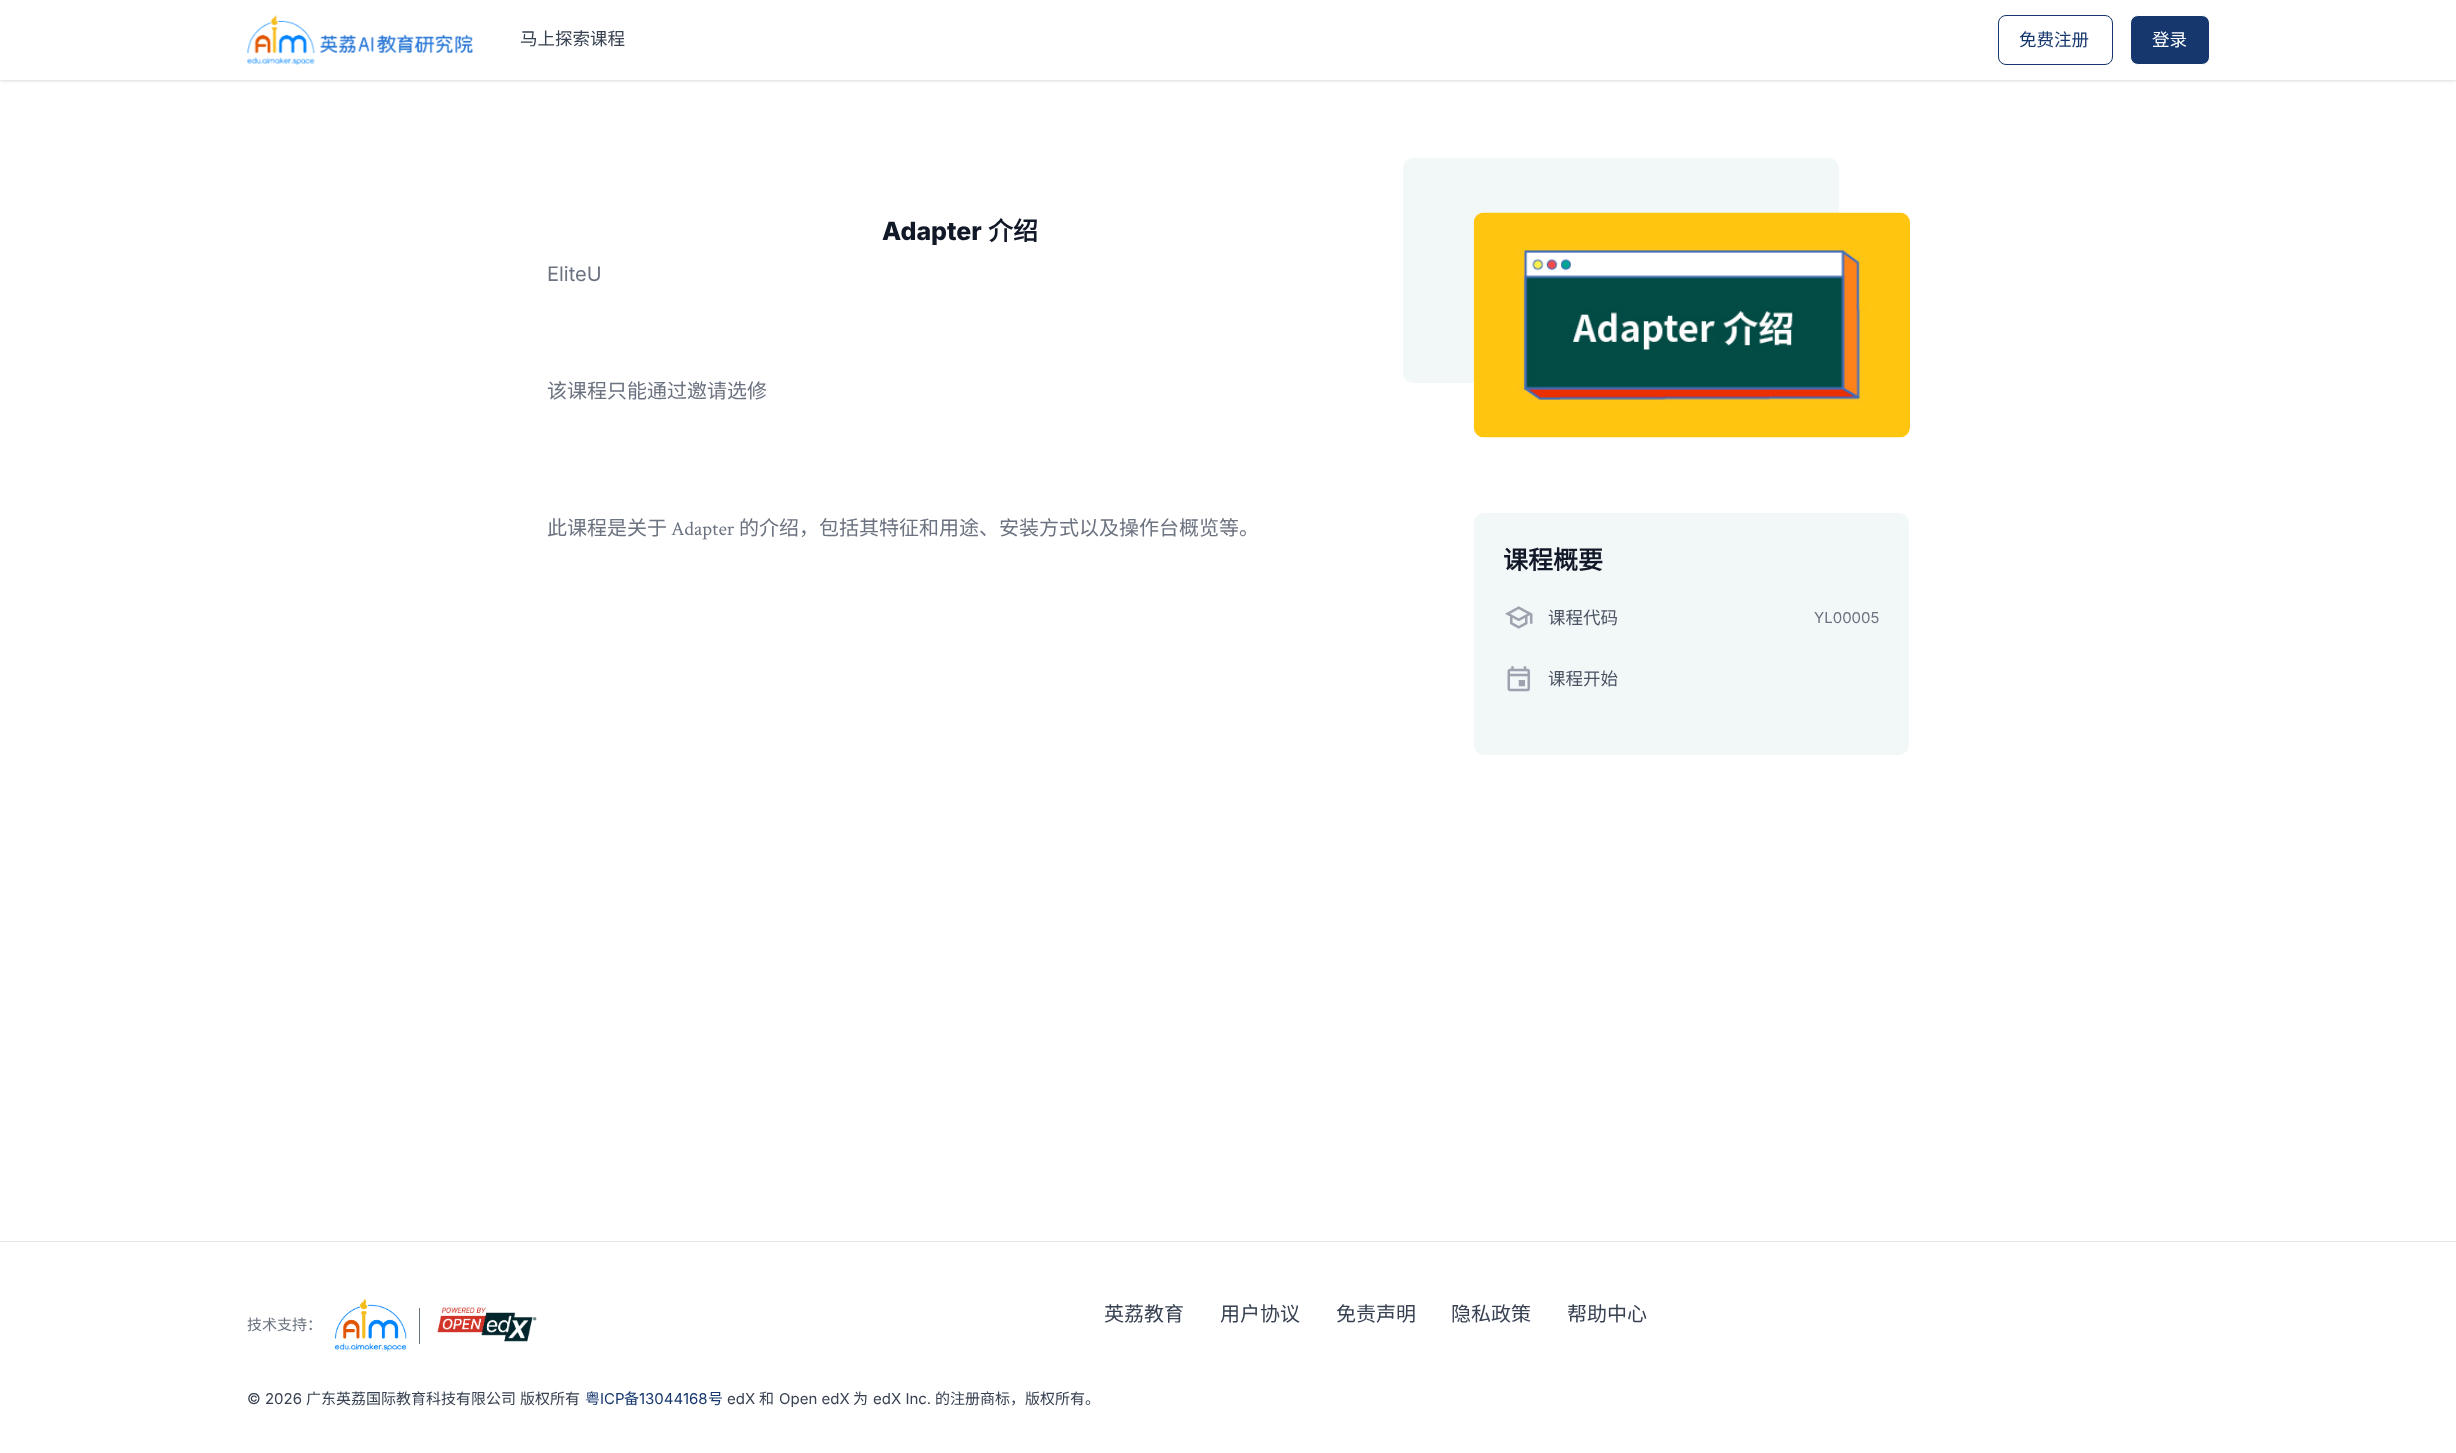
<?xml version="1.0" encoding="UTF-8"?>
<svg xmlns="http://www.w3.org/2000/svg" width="2456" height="1453">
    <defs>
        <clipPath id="clip1"><rect x="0" y="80" width="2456" height="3"/></clipPath>
        <filter id="blur1" x="-50%" y="-200%" width="200%" height="500%"><feGaussianBlur stdDeviation="2"/></filter>
        <clipPath id="clip2"><rect x="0" y="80" width="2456" height="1"/></clipPath>
        <filter id="blur2" x="-50%" y="-200%" width="200%" height="500%"><feGaussianBlur stdDeviation="1"/></filter>
    </defs>
    <rect width="100%" height="100%" fill="#FFFFFF"/>
    <g clip-path="url(#clip1)">
        <rect x="0" y="1" width="2456" height="80" fill="#000000" fill-opacity="0.1" filter="url(#blur1)"/>
    </g>
    <g clip-path="url(#clip2)">
        <rect x="0" y="1" width="2456" height="80" fill="#000000" fill-opacity="0.06" filter="url(#blur2)"/>
    </g>
    <image x="247" y="15" width="226" height="50" href="img_01.png"/>
    <text x="520" y="45" font-family="Noto Sans CJK SC" font-size="17.5" fill="#374151">马上探索课程</text>
    <rect x="1998.5" y="15.5" width="114" height="49" rx="7.5" fill="none" stroke="#15376D"/>
    <text x="2019" y="46" font-family="Noto Sans CJK SC" font-size="17.5" fill="#15376D">免费注册</text>
    <rect x="2130.5" y="15.5" width="79" height="49" rx="7.5" fill="#15376D" stroke="#FFFFFF"/>
    <text x="2152" y="46" font-family="Noto Sans CJK SC" font-size="17.5" fill="#FFFFFF">登录</text>
    <text x="882" y="240" font-family="Inter" font-size="25" font-weight="800" fill="#111827">Adapter</text>
    <text x="988" y="240" font-family="Noto Sans CJK SC" font-size="25" font-weight="700" fill="#111827">介绍</text>
    <text x="547" y="281" font-family="Inter" font-size="20" fill="#6B7280">EliteU</text>
    <rect x="1403" y="158" width="436" height="225" rx="10" fill="#F2F7F8"/>
    <image x="1473" y="212" width="437" height="226" href="img_02.png"/>
    <text x="547" y="398" font-family="Noto Sans CJK SC" font-size="20" fill="#6B7280">该课程只能通过邀请选修</text>
    <text x="547" y="535" font-family="Noto Sans CJK SC" font-size="20" fill="#6B7280">此课程是关于</text>
    <text x="671" y="535" font-family="Crimson Text" font-size="20" fill="#6B7280">Adapter</text>
    <text x="739" y="535" font-family="Noto Sans CJK SC" font-size="20" fill="#6B7280">的介绍，包括其特征和用途、安装方式以及操作台概览等。</text>
    <rect x="1474" y="513" width="435" height="242" rx="10" fill="#F2F7F8"/>
    <text x="1503" y="569" font-family="Noto Sans CJK SC" font-size="25" font-weight="700" fill="#111827">课程概要</text>
    <image x="1505" y="606" width="28" height="23" href="img_03.png"/>
    <text x="1548" y="624" font-family="Noto Sans CJK SC" font-size="17.5" fill="#4B5563">课程代码</text>
    <text x="1814" y="623" font-family="Inter" font-size="15" fill="#6B7280">YL00005</text>
    <image x="1507" y="666" width="23" height="26" href="img_04.png"/>
    <text x="1548" y="685" font-family="Noto Sans CJK SC" font-size="17.5" fill="#4B5563">课程开始</text>
    <rect x="0" y="1241" width="2456" height="1" fill="#E5E7EB"/>
    <text x="1104" y="1321" font-family="Noto Sans CJK SC" font-size="20" fill="#374151">英荔教育</text>
    <text x="1220" y="1321" font-family="Noto Sans CJK SC" font-size="20" fill="#374151">用户协议</text>
    <text x="1336" y="1321" font-family="Noto Sans CJK SC" font-size="20" fill="#374151">免责声明</text>
    <text x="1451" y="1321" font-family="Noto Sans CJK SC" font-size="20" fill="#374151">隐私政策</text>
    <text x="1567" y="1321" font-family="Noto Sans CJK SC" font-size="20" fill="#374151">帮助中心</text>
    <text x="247" y="1330" font-family="Noto Sans CJK SC" font-size="15" fill="#6B7280">技术支持：</text>
    <image x="335" y="1298" width="72" height="54" href="img_05.png"/>
    <rect x="419" y="1308" width="1" height="36" fill="#6B7280"/>
    <image x="437" y="1307" width="100" height="35" href="img_06.png"/>
    <text x="247" y="1404" font-family="Inter" font-size="15" fill="#374151">© 2026</text>
    <text x="306" y="1404" font-family="Noto Sans CJK SC" font-size="15" fill="#374151">广东英荔国际教育科技有限公司</text>
    <text x="520" y="1404" font-family="Noto Sans CJK SC" font-size="15" fill="#374151">版权所有</text>
    <text x="585" y="1404" font-family="Noto Sans CJK SC" font-size="15" fill="#15376D">粤</text>
    <text x="600" y="1404" font-family="Inter" font-size="15" fill="#15376D">ICP</text>
    <text x="624" y="1404" font-family="Noto Sans CJK SC" font-size="15" fill="#15376D">备</text>
    <text x="639" y="1404" font-family="Inter" font-size="15" fill="#15376D">13044168</text>
    <text x="708" y="1404" font-family="Noto Sans CJK SC" font-size="15" fill="#15376D">号</text>
    <text x="727" y="1404" font-family="Inter" font-size="15" fill="#374151">edX</text>
    <text x="759" y="1404" font-family="Noto Sans CJK SC" font-size="15" fill="#374151">和</text>
    <text x="779" y="1404" font-family="Inter" font-size="15" fill="#374151">Open edX</text>
    <text x="853" y="1404" font-family="Noto Sans CJK SC" font-size="15" fill="#374151">为</text>
    <text x="873" y="1404" font-family="Inter" font-size="15" fill="#374151">edX Inc.</text>
    <text x="935" y="1404" font-family="Noto Sans CJK SC" font-size="15" fill="#374151">的注册商标，版权所有。</text>
</svg>
